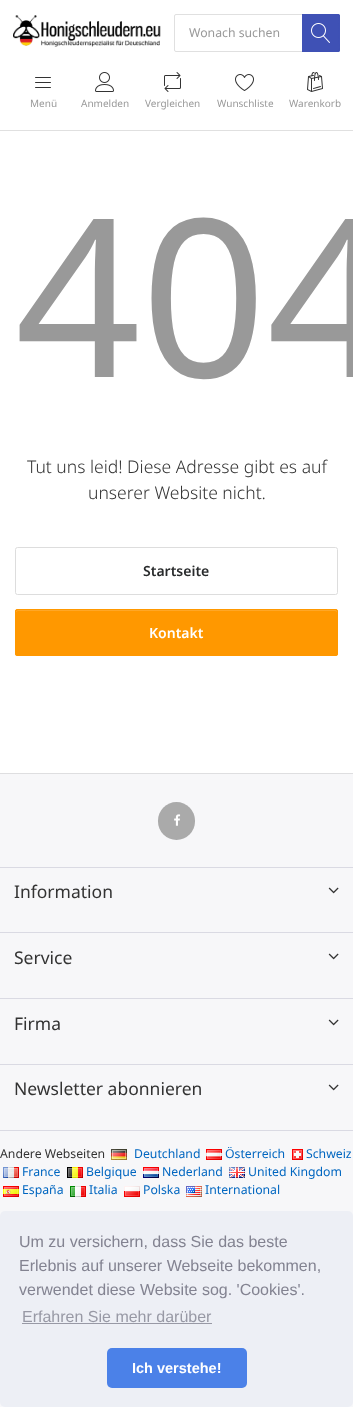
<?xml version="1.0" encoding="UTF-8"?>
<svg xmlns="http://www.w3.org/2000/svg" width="353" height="1407">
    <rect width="100%" height="100%" fill="#F7F7F9"/>
    <rect x="0" y="0" width="353" height="773" fill="#FFFFFF"/>
    <rect x="0" y="130" width="353" height="1" fill="#E0E0E0"/>
    <image x="13" y="15" width="148" height="32" href="img_01.png"/>
    <rect x="174.5" y="14.5" width="165" height="37" rx="1.5" fill="none" stroke="#E0E0E0"/>
    <text x="189" y="37" font-family="Noto Sans" font-size="12.25" fill="#999999">Wonach suchen</text>
    <path d="M 302 14 H 338 C 339 14 340 15 340 16 V 50 C 340 51 339 52 338 52 H 302 Z" fill="#3F51B5"/>
    <path d="M 302 14 L 303 15 C 306.5 15 338 14.5 338.5 15.5 L 339.5 14.5 L 338 14 Z" fill="#3F51B5"/>
    <path d="M 340 50 V 16 L 339.5 14.5 L 338.5 15.5 L 339 44.5 C 339 46.5 340 49 338.5 50.5 L 339.5 51.5 Z" fill="#3F51B5"/>
    <path d="M 338 52 L 339.5 51.5 L 338.5 50.5 C 338 51.5 306.5 51 303 51 L 302 52 Z" fill="#3F51B5"/>
    <image x="311" y="23" width="19" height="20" href="img_02.png"/>
    <image x="35" y="77" width="16" height="11" href="img_03.png"/>
    <text x="30" y="107" font-family="Noto Sans" font-size="10" fill="#999999">Menü</text>
    <image x="95" y="72" width="19" height="20" href="img_04.png"/>
    <text x="81" y="107" font-family="Noto Sans" font-size="10" fill="#999999">Anmelden</text>
    <image x="164" y="72" width="17" height="20" href="img_05.png"/>
    <text x="145" y="107" font-family="Noto Sans" font-size="10" fill="#999999">Vergleichen</text>
    <image x="235" y="74" width="19" height="17" href="img_06.png"/>
    <text x="217" y="107" font-family="Noto Sans" font-size="10" fill="#999999">Wunschliste</text>
    <image x="307" y="72" width="16" height="20" href="img_07.png"/>
    <text x="289" y="107" font-family="Noto Sans" font-size="10" fill="#999999">Warenkorb</text>
    <text x="15" y="377" font-family="Noto Sans" font-size="220" fill="#999999">404</text>
    <text x="27" y="473" font-family="Noto Sans" font-size="17.5" font-weight="300" fill="#333333">Tut uns leid! Diese Adresse gibt es auf</text>
    <text x="88" y="499" font-family="Noto Sans" font-size="17.5" font-weight="300" fill="#333333">unserer Website nicht.</text>
    <rect x="15.5" y="547.5" width="322" height="47" rx="2" fill="none" stroke="#DDDDDD"/>
    <text x="143" y="576" font-family="Noto Sans" font-size="14" font-weight="600" fill="#292B2C">Startseite</text>
    <rect x="15" y="609" width="323" height="47" rx="2.5" fill="#FF9800"/>
    <path d="M 18 611 H 335 C 336 611 337 612 337 613 C 337 612 337 610 336 610 H 18 L 16 611 V 613 C 16 612 17 611 18 611 Z" fill="#FFA726"/>
    <rect x="15.5" y="609.5" width="322" height="46" rx="2" fill="none" stroke="#FF9800"/>
    <text x="149" y="638" font-family="Noto Sans" font-size="14" font-weight="600" fill="#FFFFFF">Kontakt</text>
    <rect x="0" y="773" width="353" height="1" fill="#DEDEE0"/>
    <rect x="158" y="802" width="37" height="38" rx="18.5" fill="#AAAAAA"/>
    <image x="174" y="814" width="7" height="12" href="img_08.png"/>
    <rect x="0" y="867" width="353" height="1" fill="#DADAE3"/>
    <rect x="0" y="932" width="353" height="1" fill="#DADAE3"/>
    <text x="14" y="898" font-family="Noto Sans" font-size="17.5" fill="#333333">Information</text>
    <image x="328" y="887" width="11" height="7" href="img_09.png"/>
    <rect x="0" y="998" width="353" height="1" fill="#DADAE3"/>
    <text x="14" y="964" font-family="Noto Sans" font-size="17.5" fill="#333333">Service</text>
    <image x="328" y="953" width="11" height="7" href="img_09.png"/>
    <rect x="0" y="1064" width="353" height="1" fill="#DADAE3"/>
    <text x="14" y="1030" font-family="Noto Sans" font-size="17.5" fill="#333333">Firma</text>
    <image x="328" y="1019" width="11" height="7" href="img_09.png"/>
    <rect x="0" y="1130" width="353" height="1" fill="#DADAE3"/>
    <text x="14" y="1095" font-family="Noto Sans" font-size="17.5" fill="#333333">Newsletter abonnieren</text>
    <image x="328" y="1084" width="11" height="7" href="img_09.png"/>
    <text x="0" y="1158" font-family="Noto Sans" font-size="12.25" fill="#333333">Andere Webseiten</text>
    <image x="111" y="1149" width="16" height="11" href="img_10.png"/>
    <text x="134" y="1158" font-family="Noto Sans" font-size="12.25" fill="#0066C0">Deutchland</text>
    <image x="206" y="1149" width="16" height="11" href="img_11.png"/>
    <text x="225" y="1158" font-family="Noto Sans" font-size="12.25" fill="#0066C0">Österreich</text>
    <image x="292" y="1149" width="11" height="11" href="img_12.png"/>
    <text x="306" y="1158" font-family="Noto Sans" font-size="12.25" fill="#0066C0">Schweiz</text>
    <image x="3" y="1167" width="16" height="11" href="img_13.png"/>
    <text x="22" y="1176" font-family="Noto Sans" font-size="12.25" fill="#0066C0">France</text>
    <image x="67" y="1167" width="16" height="11" href="img_14.png"/>
    <text x="86" y="1176" font-family="Noto Sans" font-size="12.25" fill="#0066C0">Belgique</text>
    <image x="143" y="1167" width="16" height="11" href="img_15.png"/>
    <text x="162" y="1176" font-family="Noto Sans" font-size="12.25" fill="#0066C0">Nederland</text>
    <image x="229" y="1167" width="16" height="11" href="img_16.png"/>
    <text x="248" y="1176" font-family="Noto Sans" font-size="12.25" fill="#0066C0">United Kingdom</text>
    <image x="3" y="1186" width="16" height="11" href="img_17.png"/>
    <text x="22" y="1194" font-family="Noto Sans" font-size="12.25" fill="#0066C0">España</text>
    <image x="70" y="1186" width="16" height="11" href="img_18.png"/>
    <text x="89" y="1194" font-family="Noto Sans" font-size="12.25" fill="#0066C0">Italia</text>
    <image x="124" y="1186" width="16" height="11" href="img_19.png"/>
    <text x="143" y="1194" font-family="Noto Sans" font-size="12.25" fill="#0066C0">Polska</text>
    <image x="186" y="1186" width="16" height="11" href="img_20.png"/>
    <text x="205" y="1194" font-family="Noto Sans" font-size="12.25" fill="#0066C0">International</text>
    <rect x="0" y="1211" width="353" height="196" rx="5" fill="#EDEFF5"/>
    <text font-family="Liberation Sans" font-size="16" fill="#838391">
        <tspan x="19" y="1247">Um zu versichern, dass Sie das beste</tspan>
        <tspan x="19" y="1271">Erlebnis auf unserer Webseite bekommen,</tspan>
        <tspan x="19" y="1295">verwendet diese Website sog. 'Cookies'.</tspan>
    </text>
    <text x="22" y="1322" font-family="Liberation Sans" font-size="16" fill="#9899A5">Erfahren Sie mehr darüber</text>
    <rect x="22" y="1323" width="190" height="1" fill="#9899A5"/>
    <rect x="107" y="1348" width="140" height="40" rx="5" fill="#4B81E8"/>
    <text x="132" y="1373" font-family="Liberation Sans" font-size="14.5" font-weight="700" fill="#FFFFFF">Ich verstehe!</text>
</svg>
